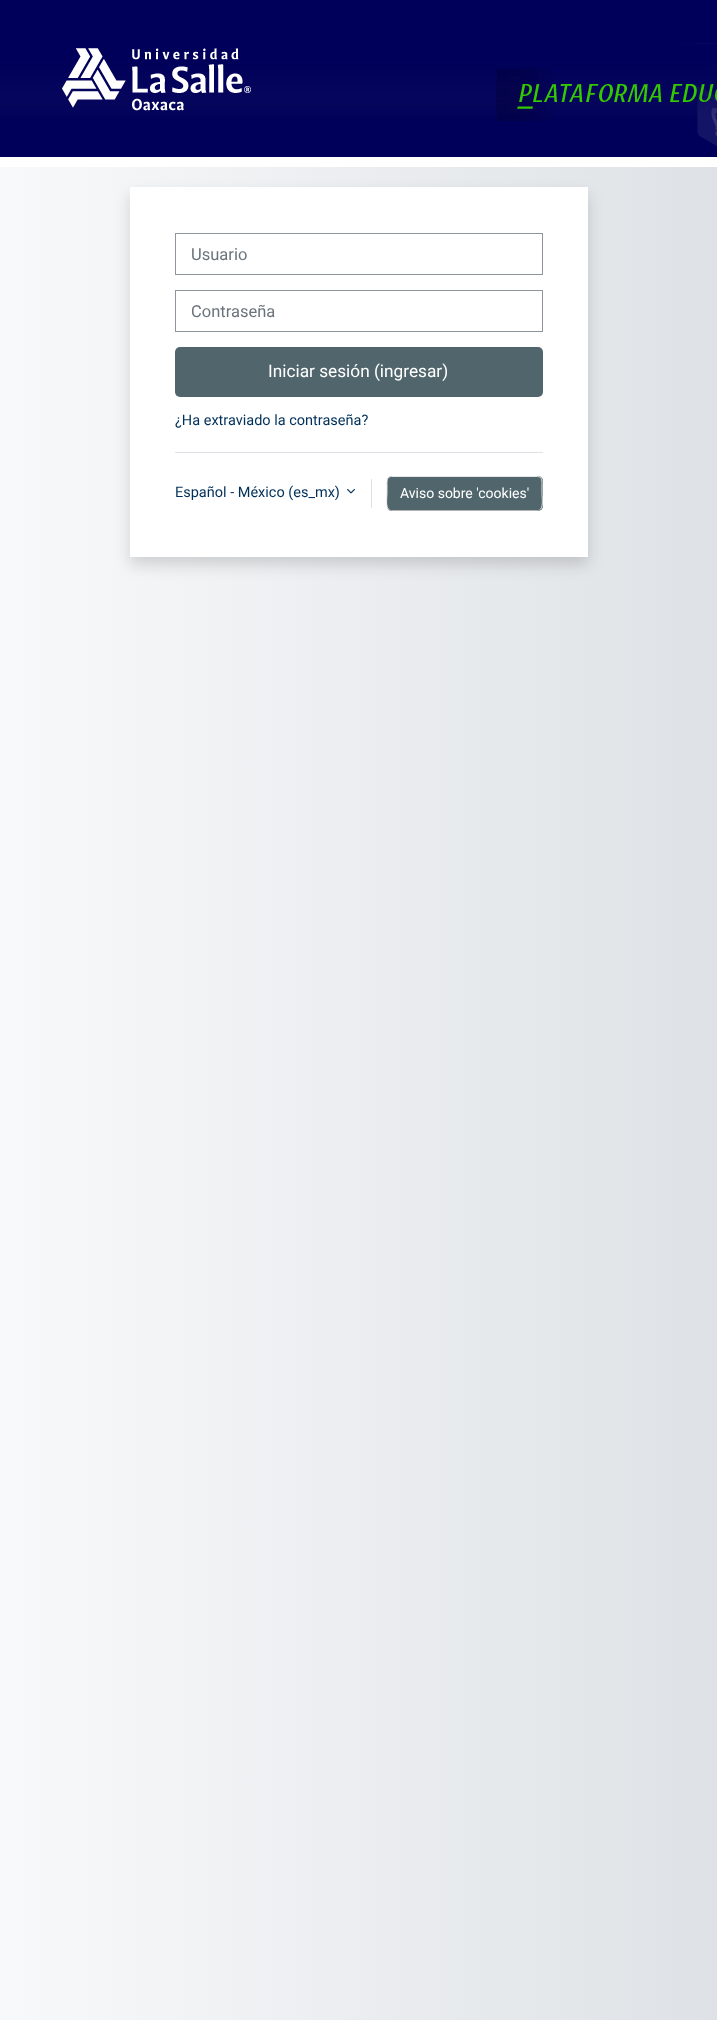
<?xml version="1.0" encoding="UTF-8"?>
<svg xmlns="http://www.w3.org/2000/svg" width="717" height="2020">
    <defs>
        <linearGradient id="g1" gradientUnits="userSpaceOnUse" x1="0" y1="1177" x2="717" y2="1177"><stop offset="0" stop-color="#F8F9FA"/><stop offset="1" stop-color="#DEE2E6"/></linearGradient>
        <filter id="blur1" x="-50%" y="-200%" width="200%" height="500%"><feGaussianBlur stdDeviation="7.5"/></filter>
    </defs>
    <rect width="100%" height="100%" fill="#FFFFFF"/>
    <image x="0" y="0" width="717" height="157" href="img_01.png"/>
    <image x="62" y="48" width="189" height="63" href="img_02.png"/>
    <rect x="0" y="167" width="717" height="1853" fill="url(#g1)"/>
    <rect x="130" y="195" width="458" height="370" fill="#000000" fill-opacity="0.15" filter="url(#blur1)"/>
    <rect x="130" y="187" width="458" height="370" fill="#FFFFFF"/>
    <rect x="175.5" y="233.5" width="367" height="41" fill="none" stroke="#8F959E"/>
    <text x="191" y="260" font-family="Roboto" font-size="16.5" fill="#6A737B">Usuario</text>
    <rect x="175.5" y="290.5" width="367" height="41" fill="none" stroke="#8F959E"/>
    <text x="191" y="317" font-family="Roboto" font-size="16.5" fill="#6A737B">Contraseña</text>
    <rect x="175" y="347" width="368" height="50" rx="5" fill="#51666C"/>
    <text x="268" y="377" font-family="Roboto" font-size="17.25" fill="#FFFFFF">Iniciar sesión (ingresar)</text>
    <text x="175" y="425" font-family="Roboto" font-size="14.5" fill="#01305A">¿Ha extraviado la contraseña?</text>
    <rect x="175" y="452" width="368" height="1" fill="#DEE2E6"/>
    <text x="175" y="497" font-family="Roboto" font-size="14.5" fill="#01305A">Español - México (es_mx)</text>
    <image x="347" y="489" width="8" height="5" href="img_03.png"/>
    <rect x="371" y="479" width="1" height="29" fill="#DEE2E6"/>
    <rect x="387" y="476" width="156" height="35" rx="5" fill="#51666C"/>
    <path d="M 540.5 509 C 540 510 538.5 510.5 537.5 510.5 H 391.5 C 390.5 510.5 389 510 388.5 509" fill="none" stroke="#B3B3B3"/>
    <path d="M 388.5 509 C 385.5 506.5 387 497 387 493.5 V 485 C 387 482 386.5 476.5 391.5 476.5 H 537.5 C 542.5 476.5 542 482 542 485 V 493.5 C 542 497 543.5 506.5 540.5 509" fill="none" stroke="#E6E6E6"/>
    <text x="400" y="498" font-family="Roboto" font-size="14" fill="#FFFFFF">Aviso sobre 'cookies'</text>
</svg>
